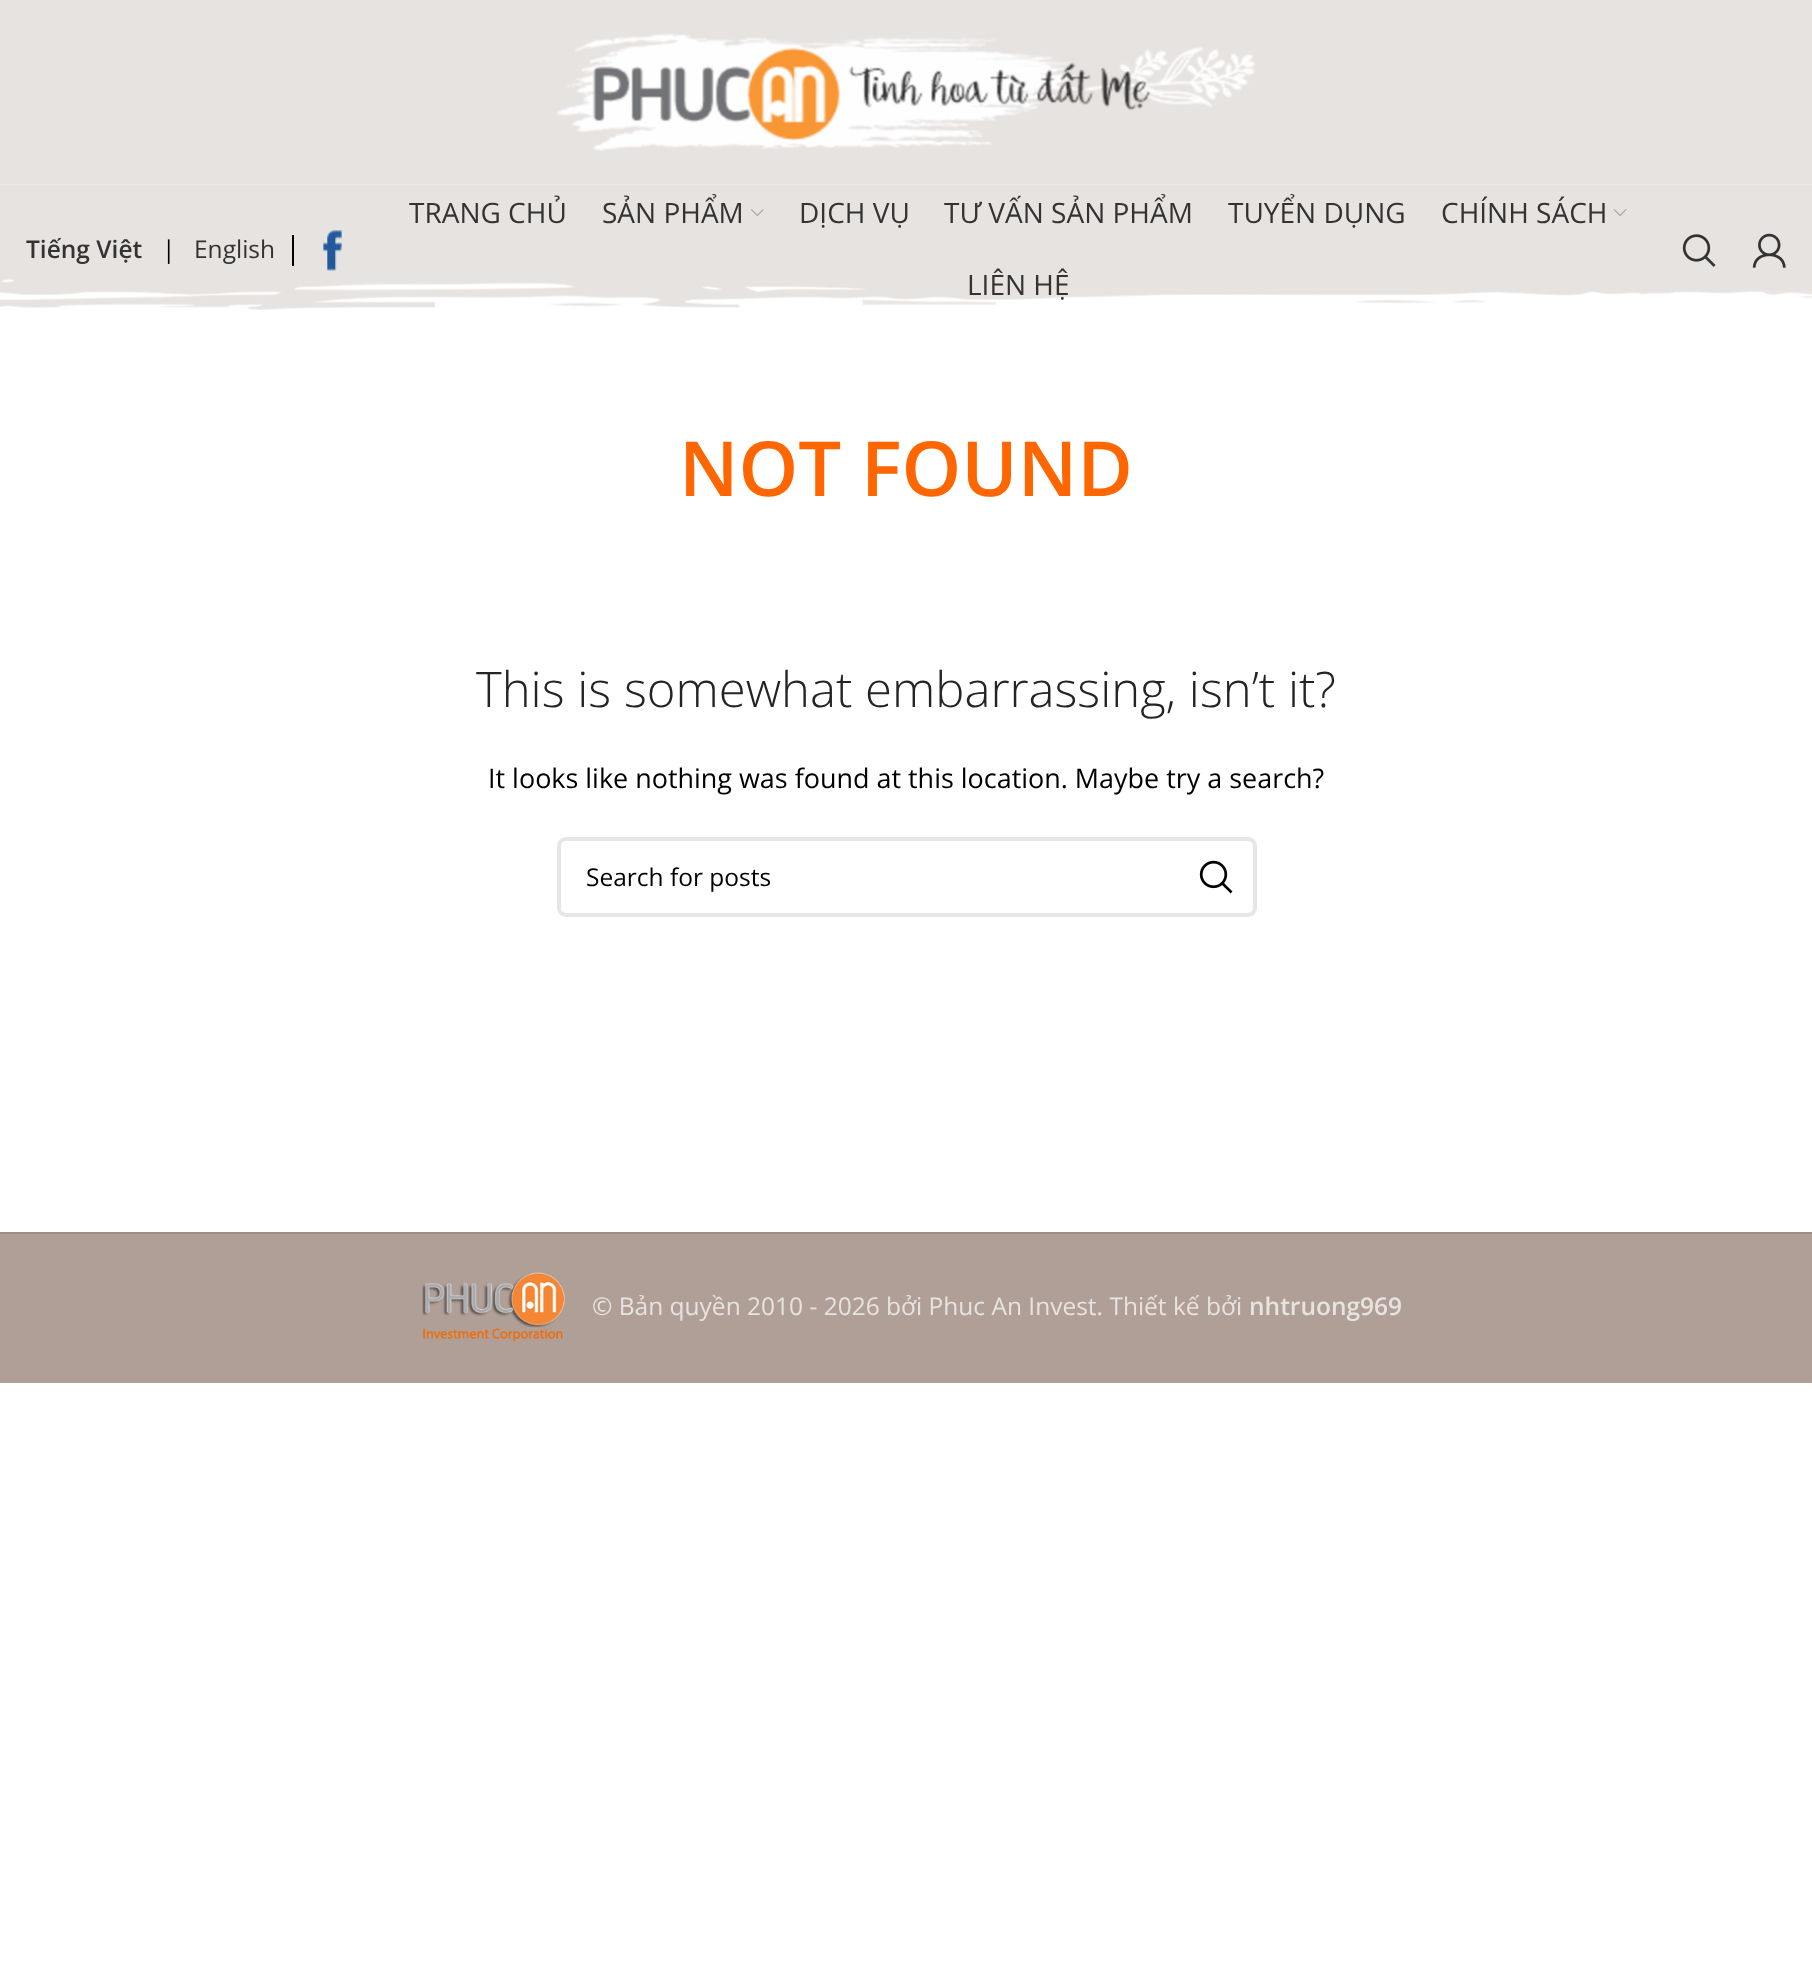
<?xml version="1.0" encoding="UTF-8"?>
<svg xmlns="http://www.w3.org/2000/svg" width="1812" height="1974">
    <rect width="100%" height="100%" fill="#FFFFFF"/>
    <rect x="0" y="0" width="1812" height="184" fill="#E7E3E1"/>
    <image x="556" y="33" width="700" height="118" href="img_01.png"/>
    <image x="0" y="184" width="1812" height="126" href="img_02.png"/>
    <text x="26" y="258" font-family="Open Sans" font-size="24.5" font-weight="600" fill="#333333">Tiếng Việt</text>
    <text x="162" y="258" font-family="Open Sans" font-size="24.5" fill="#000000">|</text>
    <text x="194" y="258" font-family="Open Sans" font-size="24.5" fill="#333333">English</text>
    <rect x="292" y="235" width="2" height="31" fill="#000000"/>
    <image x="323" y="230" width="19" height="41" href="img_03.png"/>
    <text x="409" y="223" font-family="Open Sans" font-size="28" fill="#333333">TRANG CHỦ</text>
    <text x="602" y="223" font-family="Open Sans" font-size="28" fill="#333333">SẢN PHẨM</text>
    <image x="751" y="209" width="13" height="8" href="img_04.png"/>
    <text x="799" y="223" font-family="Open Sans" font-size="28" fill="#333333">DỊCH VỤ</text>
    <text x="944" y="223" font-family="Open Sans" font-size="28" fill="#333333">TƯ VẤN SẢN PHẨM</text>
    <text x="1228" y="223" font-family="Open Sans" font-size="28" fill="#333333">TUYỂN DỤNG</text>
    <text x="1441" y="223" font-family="Open Sans" font-size="28" fill="#333333">CHÍNH SÁCH</text>
    <image x="1613" y="209" width="14" height="7" href="img_05.png"/>
    <text x="967" y="295" font-family="Open Sans" font-size="28" fill="#333333">LIÊN HỆ</text>
    <image x="1682" y="234" width="34" height="33" href="img_06.png"/>
    <image x="1752" y="233" width="34" height="35" href="img_07.png"/>
    <text x="679" y="496" font-family="Open Sans" font-size="76" font-weight="600" fill="#FF6600">NOT FOUND</text>
    <text x="476" y="707" font-family="Open Sans" font-size="49" font-weight="300" fill="#242424">This is somewhat embarrassing, isn’t it?</text>
    <text x="488" y="788" font-family="Open Sans" font-size="26.95" fill="#000000">It looks like nothing was found at this location. Maybe try a search?</text>
    <rect x="559" y="839" width="696" height="76" rx="7" fill="none" stroke="#E6E6E6" stroke-width="4"/>
    <text x="586" y="886" font-family="Open Sans" font-size="24.5" fill="#000000">Search for posts</text>
    <image x="1199" y="860" width="34" height="34" href="img_08.png"/>
    <rect x="0" y="1234" width="1812" height="149" fill="#B09F96"/>
    <rect x="0" y="1232" width="1812" height="2" fill="#9D8E86"/>
    <image x="422" y="1272" width="143" height="70" href="img_09.png"/>
    <text x="592" y="1315" font-family="Open Sans" font-size="24.5" fill="#E7E3E1">© Bản quyền 2010 - 2026 bởi Phuc An Invest. Thiết kế bởi</text>
    <text x="1249" y="1315" font-family="Open Sans" font-size="24.5" font-weight="600" fill="#E7E3E1">nhtruong969</text>
</svg>
